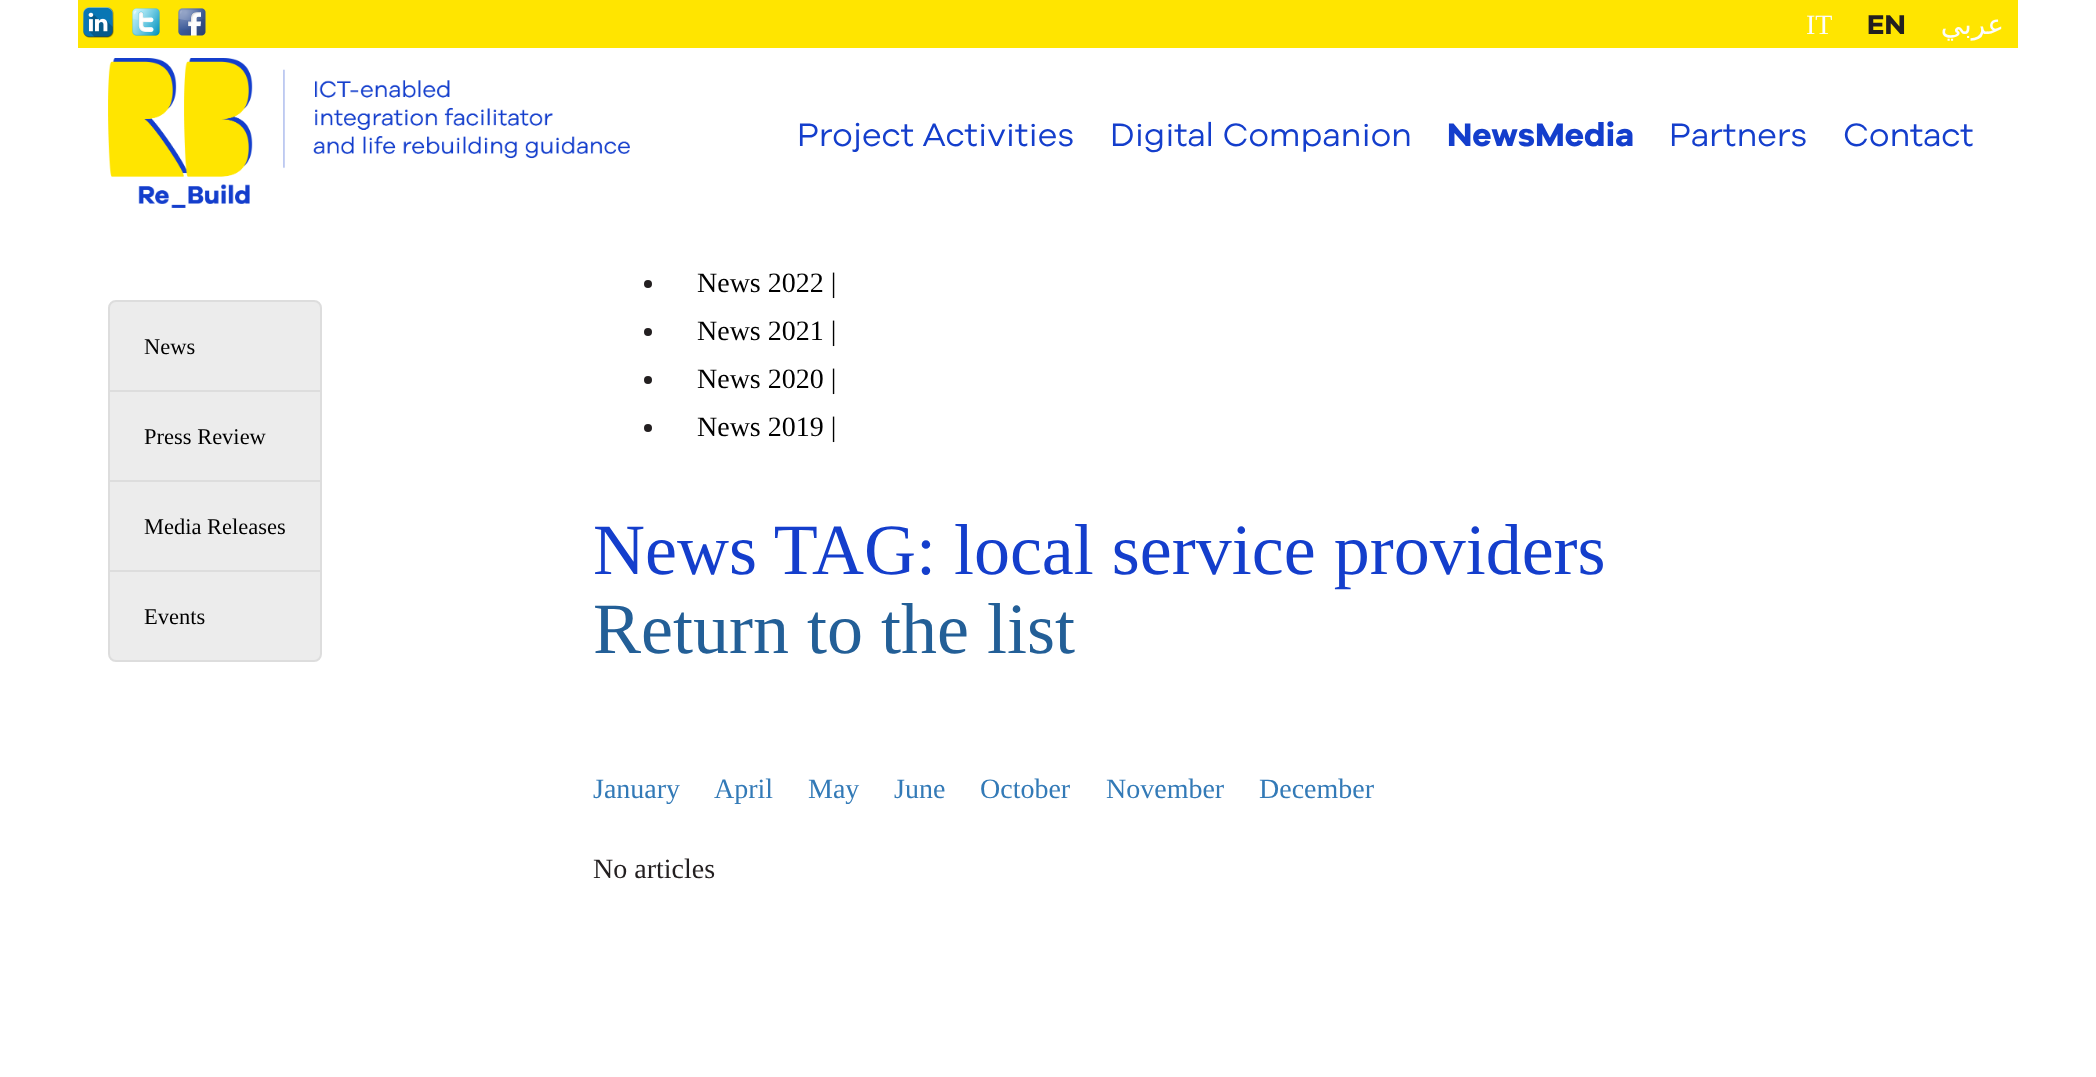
<?xml version="1.0" encoding="UTF-8"?>
<svg xmlns="http://www.w3.org/2000/svg" width="2096" height="1077">
    <rect width="100%" height="100%" fill="#FFFFFF"/>
    <rect x="78" y="0" width="1940" height="48" fill="#FFE500"/>
    <image x="83" y="7" width="31" height="31" href="img_01.png"/>
    <image x="132" y="8" width="28" height="28" href="img_02.png"/>
    <image x="178" y="8" width="28" height="28" href="img_03.png"/>
    <text x="1806" y="34" font-family="Liberation Serif" font-size="28" fill="#FCFCFC">IT</text>
    <text x="1867" y="34" font-family="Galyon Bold" font-size="28" font-weight="700" fill="#231F20">EN</text>
    <text x="2004" y="34" font-family="DejaVu Sans" font-size="28" direction="rtl" fill="#FCFCFC">عربي</text>
    <image x="108" y="58" width="522" height="150" href="img_04.png"/>
    <text x="797" y="146" font-family="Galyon" font-size="33.5" fill="#143ECC">Project Activities</text>
    <text x="1110" y="146" font-family="Galyon" font-size="33.5" fill="#143ECC">Digital Companion</text>
    <text x="1447" y="146" font-family="Galyon Bold" font-size="33.5" font-weight="700" fill="#143ECC">NewsMedia</text>
    <text x="1669" y="146" font-family="Galyon" font-size="33.5" fill="#143ECC">Partners</text>
    <text x="1843" y="146" font-family="Galyon" font-size="33.5" fill="#143ECC">Contact</text>
    <path d="M 116 301 H 314 C 318 301 321 304 321 308 V 391 H 109 V 308 C 109 304 112 301 116 301 Z" fill="#ECECEC" stroke="#DDDDDD" stroke-width="2"/>
    <text x="144" y="354" font-family="Liberation Serif" font-size="22.5" fill="#000000">News</text>
    <rect x="109" y="391" width="212" height="90" fill="#ECECEC" stroke="#DDDDDD" stroke-width="2"/>
    <text x="144" y="444" font-family="Liberation Serif" font-size="22.5" fill="#000000">Press Review</text>
    <rect x="109" y="481" width="212" height="90" fill="#ECECEC" stroke="#DDDDDD" stroke-width="2"/>
    <text x="144" y="534" font-family="Liberation Serif" font-size="22.5" fill="#000000">Media Releases</text>
    <path d="M 109 571 H 321 V 654 C 321 658 318 661 314 661 H 116 C 112 661 109 658 109 654 Z" fill="#ECECEC" stroke="#DDDDDD" stroke-width="2"/>
    <text x="144" y="624" font-family="Liberation Serif" font-size="22.5" fill="#000000">Events</text>
    <circle cx="648" cy="284" r="4" fill="#231F20"/>
    <text x="697" y="292" font-family="Liberation Serif" font-size="28" fill="#000000">News 2022 |</text>
    <circle cx="648" cy="332" r="4" fill="#231F20"/>
    <text x="697" y="340" font-family="Liberation Serif" font-size="28" fill="#000000">News 2021 |</text>
    <circle cx="648" cy="380" r="4" fill="#231F20"/>
    <text x="697" y="388" font-family="Liberation Serif" font-size="28" fill="#000000">News 2020 |</text>
    <circle cx="648" cy="428" r="4" fill="#231F20"/>
    <text x="697" y="436" font-family="Liberation Serif" font-size="28" fill="#000000">News 2019 |</text>
    <text x="593" y="574" font-family="Liberation Serif" font-size="72" fill="#143ECC">News TAG: local service providers</text>
    <text x="593" y="653" font-family="Liberation Serif" font-size="72" fill="#235F97">Return to the list</text>
    <text x="593" y="798" font-family="Liberation Serif" font-size="28" fill="#337AB7">January</text>
    <text x="714" y="798" font-family="Liberation Serif" font-size="28" fill="#337AB7">April</text>
    <text x="808" y="798" font-family="Liberation Serif" font-size="28" fill="#337AB7">May</text>
    <text x="894" y="798" font-family="Liberation Serif" font-size="28" fill="#337AB7">June</text>
    <text x="980" y="798" font-family="Liberation Serif" font-size="28" fill="#337AB7">October</text>
    <text x="1106" y="798" font-family="Liberation Serif" font-size="28" fill="#337AB7">November</text>
    <text x="1259" y="798" font-family="Liberation Serif" font-size="28" fill="#337AB7">December</text>
    <text x="593" y="878" font-family="Liberation Serif" font-size="28" fill="#231F20">No articles</text>
</svg>
